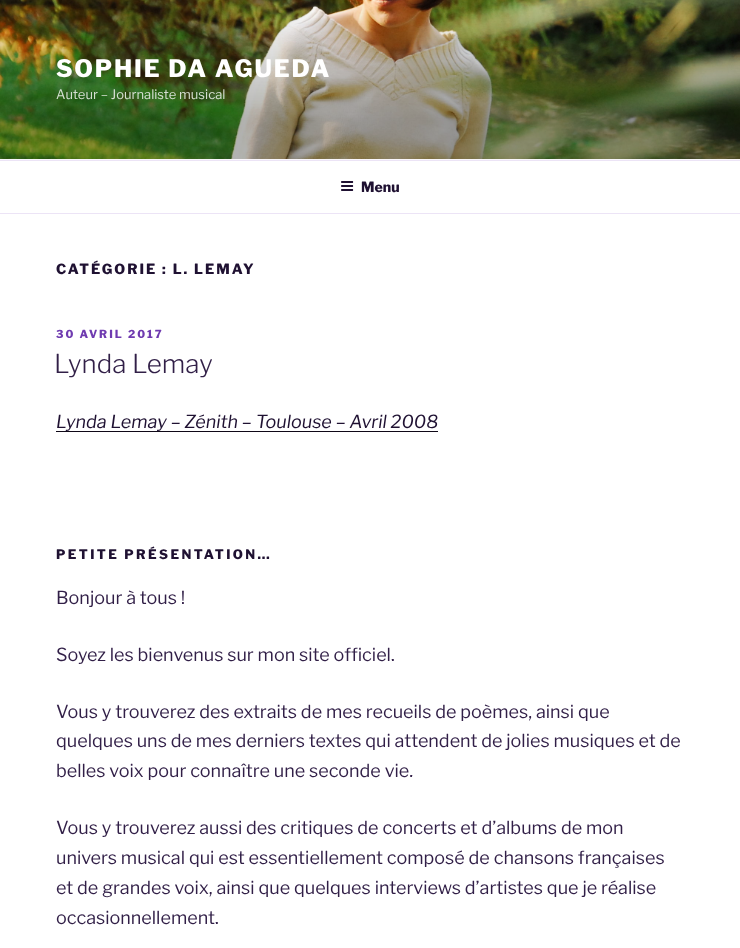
<?xml version="1.0" encoding="UTF-8"?>
<svg xmlns="http://www.w3.org/2000/svg" width="740" height="948">
    <rect width="100%" height="100%" fill="#FFFFFF"/>
    <rect x="0" y="159" width="740" height="1" fill="#FAF7FC"/>
    <image x="0" y="0" width="740" height="159" href="img_01.png"/>
    <text x="56" y="77" font-family="Libre Franklin" font-size="24" font-weight="100" letter-spacing="1.9" fill="#FFFFFF">SOPHIE DA AGUEDA</text>
    <text x="56" y="99" font-family="'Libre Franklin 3'" font-size="13" font-weight="100" fill="#D6DFD2">Auteur – Journaliste musical</text>
    <rect x="0" y="160" width="740" height="1" fill="#ECE4F6"/>
    <rect x="0" y="213" width="740" height="1" fill="#ECE4F6"/>
    <image x="341" y="181" width="13" height="10" href="img_02.png"/>
    <text x="361" y="192" font-family="Libre Franklin" font-size="14" font-weight="100" fill="#1F1132">Menu</text>
    <text x="56" y="274" font-family="Libre Franklin" font-size="14" font-weight="100" letter-spacing="2" fill="#1F1132">CATÉGORIE : L. LEMAY</text>
    <text x="56" y="338" font-family="Libre Franklin" font-size="11" font-weight="100" letter-spacing="2" fill="#6F3BB0">30 AVRIL 2017</text>
    <text x="54" y="373" font-family="'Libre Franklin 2'" font-size="26" font-weight="100" fill="#311F47">Lynda Lemay</text>
    <text x="56" y="428" font-family="Libre Franklin" font-size="18" font-weight="100" font-style="italic" fill="#1F1132">Lynda Lemay – Zénith – Toulouse – Avril 2008</text>
    <rect x="56" y="431" width="382" height="1" fill="#0F0817"/>
    <text x="56" y="559" font-family="Libre Franklin" font-size="13" font-weight="100" letter-spacing="2.4" fill="#1F1132">PETITE PRÉSENTATION…</text>
    <text x="56" y="604" font-family="'Libre Franklin 3'" font-size="18" font-weight="100" fill="#311F47">Bonjour à tous !</text>
    <text x="56" y="661" font-family="'Libre Franklin 3'" font-size="18" font-weight="100" fill="#311F47">Soyez les bienvenus sur mon site officiel.</text>
    <text font-family="'Libre Franklin 3'" font-size="18" font-weight="100" fill="#311F47">
        <tspan x="56" y="718">Vous y trouverez des extraits de mes recueils de poèmes, ainsi que</tspan>
        <tspan x="56" y="747">quelques uns de mes derniers textes qui attendent de jolies musiques et de</tspan>
        <tspan x="56" y="777">belles voix pour connaître une seconde vie.</tspan>
    </text>
    <text font-family="'Libre Franklin 3'" font-size="18" font-weight="100" fill="#311F47">
        <tspan x="56" y="834">Vous y trouverez aussi des critiques de concerts et d’albums de mon</tspan>
        <tspan x="56" y="864">univers musical qui est essentiellement composé de chansons françaises</tspan>
        <tspan x="56" y="894">et de grandes voix, ainsi que quelques interviews d’artistes que je réalise</tspan>
        <tspan x="56" y="924">occasionnellement.</tspan>
    </text>
</svg>
